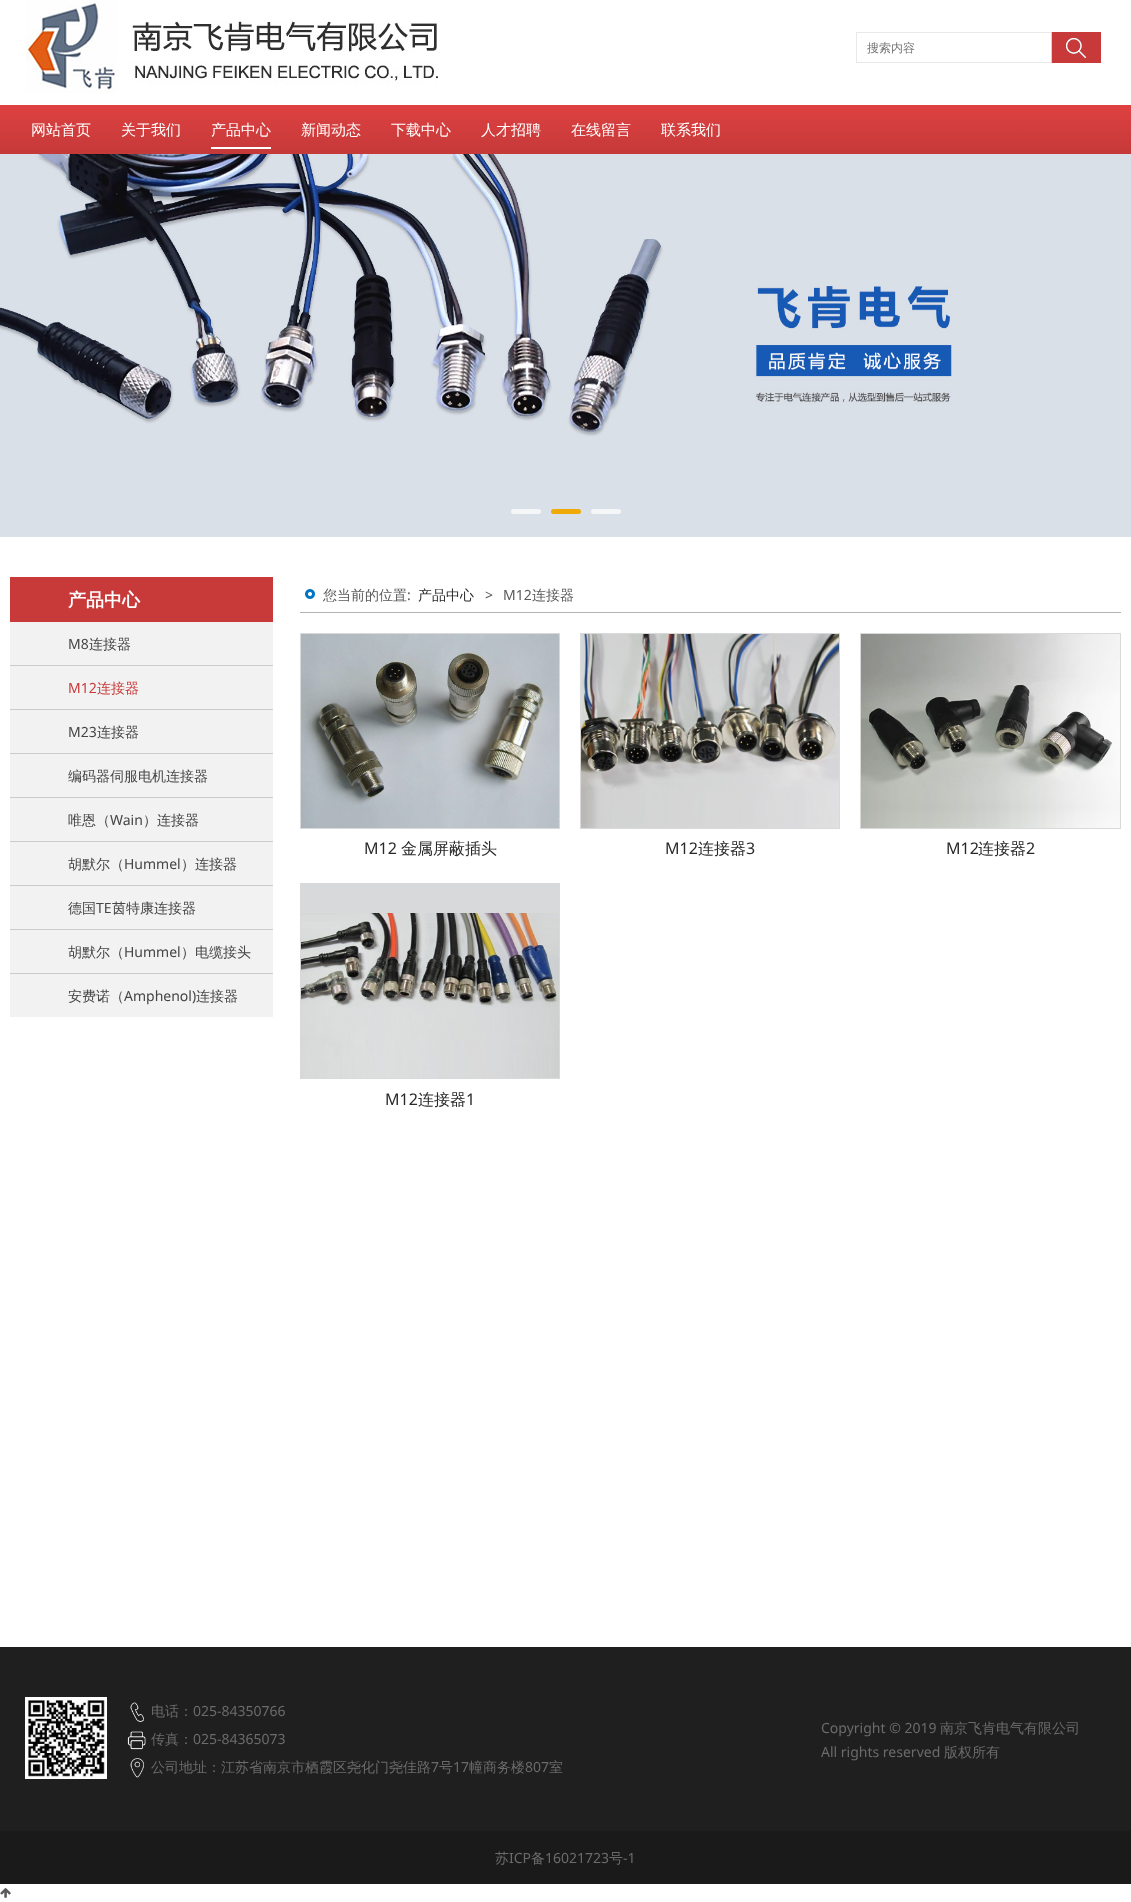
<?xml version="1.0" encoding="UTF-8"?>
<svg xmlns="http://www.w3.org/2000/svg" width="1131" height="1902">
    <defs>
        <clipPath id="clip1"><rect x="867" y="39" width="178" height="18"/></clipPath>
        <linearGradient id="g1" gradientUnits="userSpaceOnUse" x1="566" y1="154" x2="566" y2="105"><stop offset="0" stop-color="#C53939"/><stop offset="1" stop-color="#DF4141"/></linearGradient>
    </defs>
    <rect width="100%" height="100%" fill="#FFFFFF"/>
    <image x="26" y="0" width="412" height="93" href="img_01.png"/>
    <rect x="856.5" y="32.5" width="244" height="30" fill="none" stroke="#E9E9E9"/>
    <g clip-path="url(#clip1)">
        <text x="867" y="52" font-family="WenQuanYi Zen Hei" font-size="12" font-weight="500" fill="#757575">搜索内容</text>
    </g>
    <rect x="1052" y="32" width="49" height="31" fill="#C83939"/>
    <image x="1066" y="38" width="20" height="20" href="img_02.png"/>
    <rect x="1051" y="32" width="1" height="31" fill="#D3D3D3"/>
    <image x="1066" y="38" width="20" height="20" href="img_03.png"/>
    <rect x="0" y="105" width="1131" height="49" fill="url(#g1)"/>
    <text x="31" y="135" font-family="WenQuanYi Zen Hei" font-size="15" font-weight="500" fill="#FFFFFF">网站首页</text>
    <text x="121" y="135" font-family="WenQuanYi Zen Hei" font-size="15" font-weight="500" fill="#FFFFFF">关于我们</text>
    <text x="211" y="135" font-family="WenQuanYi Zen Hei" font-size="15" font-weight="500" fill="#FFFFFF">产品中心</text>
    <rect x="211" y="147" width="60" height="2" fill="#FFFFFF"/>
    <text x="301" y="135" font-family="WenQuanYi Zen Hei" font-size="15" font-weight="500" fill="#FFFFFF">新闻动态</text>
    <text x="391" y="135" font-family="WenQuanYi Zen Hei" font-size="15" font-weight="500" fill="#FFFFFF">下载中心</text>
    <text x="481" y="135" font-family="WenQuanYi Zen Hei" font-size="15" font-weight="500" fill="#FFFFFF">人才招聘</text>
    <text x="571" y="135" font-family="WenQuanYi Zen Hei" font-size="15" font-weight="500" fill="#FFFFFF">在线留言</text>
    <text x="661" y="135" font-family="WenQuanYi Zen Hei" font-size="15" font-weight="500" fill="#FFFFFF">联系我们</text>
    <image x="0" y="154" width="1131" height="383" href="img_04.png"/>
    <rect x="511" y="509" width="30" height="5" rx="2.5" fill="#F4F6F8"/>
    <rect x="551" y="509" width="30" height="5" rx="2.5" fill="#EFAA07"/>
    <rect x="591" y="509" width="30" height="5" rx="2.5" fill="#F4F6F8"/>
    <rect x="10" y="622" width="263" height="395" fill="#F2F2F2"/>
    <rect x="10" y="577" width="263" height="45" fill="#C83939"/>
    <text x="68" y="606" font-family="WenQuanYi Zen Hei" font-size="18" font-weight="700" fill="#FFFFFF">产品中心</text>
    <rect x="10" y="665" width="263" height="1" fill="#CBCBCB"/>
    <text x="68" y="649" font-family="Noto Sans" font-size="14" fill="#454545">M8</text>
    <text x="89" y="649" font-family="WenQuanYi Zen Hei" font-size="14" font-weight="500" fill="#454545">连接器</text>
    <rect x="10" y="709" width="263" height="1" fill="#CBCBCB"/>
    <text x="68" y="693" font-family="Noto Sans" font-size="14" fill="#C83939">M12</text>
    <text x="97" y="693" font-family="WenQuanYi Zen Hei" font-size="14" font-weight="500" fill="#C83939">连接器</text>
    <rect x="10" y="753" width="263" height="1" fill="#CBCBCB"/>
    <text x="68" y="737" font-family="Noto Sans" font-size="14" fill="#454545">M23</text>
    <text x="97" y="737" font-family="WenQuanYi Zen Hei" font-size="14" font-weight="500" fill="#454545">连接器</text>
    <rect x="10" y="797" width="263" height="1" fill="#CBCBCB"/>
    <text x="68" y="781" font-family="WenQuanYi Zen Hei" font-size="14" font-weight="500" fill="#454545">编码器伺服电机连接器</text>
    <rect x="10" y="841" width="263" height="1" fill="#CBCBCB"/>
    <text x="68" y="825" font-family="WenQuanYi Zen Hei" font-size="14" font-weight="500" fill="#454545">唯恩（</text>
    <text x="110" y="825" font-family="Noto Sans" font-size="14" fill="#454545">Wain</text>
    <text x="143" y="825" font-family="WenQuanYi Zen Hei" font-size="14" font-weight="500" fill="#454545">）连接器</text>
    <rect x="10" y="885" width="263" height="1" fill="#CBCBCB"/>
    <text x="68" y="869" font-family="WenQuanYi Zen Hei" font-size="14" font-weight="500" fill="#454545">胡默尔（</text>
    <text x="124" y="869" font-family="Noto Sans" font-size="14" fill="#454545">Hummel</text>
    <text x="181" y="869" font-family="WenQuanYi Zen Hei" font-size="14" font-weight="500" fill="#454545">）连接器</text>
    <rect x="10" y="929" width="263" height="1" fill="#CBCBCB"/>
    <text x="68" y="913" font-family="WenQuanYi Zen Hei" font-size="14" font-weight="500" fill="#454545">德国</text>
    <text x="96" y="913" font-family="Noto Sans" font-size="14" fill="#454545">TE</text>
    <text x="112" y="913" font-family="WenQuanYi Zen Hei" font-size="14" font-weight="500" fill="#454545">茵特康连接器</text>
    <rect x="10" y="973" width="263" height="1" fill="#CBCBCB"/>
    <text x="68" y="957" font-family="WenQuanYi Zen Hei" font-size="14" font-weight="500" fill="#454545">胡默尔（</text>
    <text x="124" y="957" font-family="Noto Sans" font-size="14" fill="#454545">Hummel</text>
    <text x="181" y="957" font-family="WenQuanYi Zen Hei" font-size="14" font-weight="500" fill="#454545">）电缆接头</text>
    <text x="68" y="1001" font-family="WenQuanYi Zen Hei" font-size="14" font-weight="500" fill="#454545">安费诺（</text>
    <text x="124" y="1001" font-family="Noto Sans" font-size="14" fill="#454545">Amphenol)</text>
    <text x="196" y="1001" font-family="WenQuanYi Zen Hei" font-size="14" font-weight="500" fill="#454545">连接器</text>
    <image x="305" y="589" width="10" height="10" href="img_05.png"/>
    <rect x="300" y="612" width="821" height="1" fill="#B3B3B3"/>
    <text x="323" y="600" font-family="WenQuanYi Zen Hei" font-size="14" font-weight="500" fill="#5A5A5A">您当前的位置</text>
    <text x="407" y="600" font-family="Noto Sans" font-size="14" fill="#5A5A5A">:</text>
    <text x="418" y="600" font-family="WenQuanYi Zen Hei" font-size="14" font-weight="500" fill="#292929">产品中心</text>
    <text x="485" y="600" font-family="Noto Sans" font-size="14" fill="#5A5A5A">&gt;</text>
    <text x="503" y="600" font-family="Noto Sans" font-size="14" fill="#5A5A5A">M12</text>
    <text x="532" y="600" font-family="WenQuanYi Zen Hei" font-size="14" font-weight="500" fill="#5A5A5A">连接器</text>
    <rect x="300.5" y="633.5" width="259" height="195" fill="none" stroke="#D9D9D9"/>
    <image x="301" y="634" width="258" height="194" href="img_06.png"/>
    <text x="364" y="854" font-family="Noto Sans" font-size="16" fill="#292929">M12</text>
    <text x="401" y="854" font-family="WenQuanYi Zen Hei" font-size="16" font-weight="500" fill="#292929">金属屏蔽插头</text>
    <rect x="580.5" y="633.5" width="259" height="195" fill="none" stroke="#D9D9D9"/>
    <image x="581" y="634" width="258" height="194" href="img_07.png"/>
    <text x="665" y="854" font-family="Noto Sans" font-size="16" fill="#292929">M12</text>
    <text x="698" y="854" font-family="WenQuanYi Zen Hei" font-size="16" font-weight="500" fill="#292929">连接器</text>
    <text x="746" y="854" font-family="Noto Sans" font-size="16" fill="#292929">3</text>
    <rect x="860.5" y="633.5" width="260" height="195" fill="none" stroke="#D9D9D9"/>
    <image x="861" y="634" width="259" height="194" href="img_08.png"/>
    <text x="946" y="854" font-family="Noto Sans" font-size="16" fill="#292929">M12</text>
    <text x="978" y="854" font-family="WenQuanYi Zen Hei" font-size="16" font-weight="500" fill="#292929">连接器</text>
    <text x="1026" y="854" font-family="Noto Sans" font-size="16" fill="#292929">2</text>
    <rect x="300.5" y="883.5" width="259" height="195" fill="none" stroke="#D9D9D9"/>
    <image x="301" y="884" width="258" height="194" href="img_09.png"/>
    <text x="385" y="1105" font-family="Noto Sans" font-size="16" fill="#292929">M12</text>
    <text x="418" y="1105" font-family="WenQuanYi Zen Hei" font-size="16" font-weight="500" fill="#292929">连接器</text>
    <text x="466" y="1105" font-family="Noto Sans" font-size="16" fill="#292929">1</text>
    <rect x="0" y="1647" width="1131" height="184" fill="#1F1F1F"/>
    <image x="25" y="1697" width="82" height="82" href="img_10.png"/>
    <image x="130" y="1702" width="14" height="20" href="img_11.png"/>
    <text x="151" y="1716" font-family="WenQuanYi Zen Hei" font-size="14" font-weight="500" fill="#6B6B6B">电话：</text>
    <text x="193" y="1716" font-family="Noto Sans" font-size="14" fill="#6B6B6B">025-84350766</text>
    <image x="127" y="1731" width="19" height="19" href="img_12.png"/>
    <text x="151" y="1744" font-family="WenQuanYi Zen Hei" font-size="14" font-weight="500" fill="#6B6B6B">传真：</text>
    <text x="193" y="1744" font-family="Noto Sans" font-size="14" fill="#6B6B6B">025-84365073</text>
    <image x="130" y="1758" width="14" height="20" href="img_13.png"/>
    <text x="151" y="1772" font-family="WenQuanYi Zen Hei" font-size="14" font-weight="500" fill="#6B6B6B">公司地址：江苏省南京市栖霞区尧化门尧佳路</text>
    <text x="431" y="1772" font-family="Noto Sans" font-size="14" fill="#6B6B6B">7</text>
    <text x="439" y="1772" font-family="WenQuanYi Zen Hei" font-size="14" font-weight="500" fill="#6B6B6B">号</text>
    <text x="453" y="1772" font-family="Noto Sans" font-size="14" fill="#6B6B6B">17</text>
    <text x="469" y="1772" font-family="WenQuanYi Zen Hei" font-size="14" font-weight="500" fill="#6B6B6B">幢商务楼</text>
    <text x="525" y="1772" font-family="Noto Sans" font-size="14" fill="#6B6B6B">807</text>
    <text x="549" y="1772" font-family="WenQuanYi Zen Hei" font-size="14" font-weight="500" fill="#6B6B6B">室</text>
    <text x="821" y="1733" font-family="Noto Sans" font-size="14" fill="#6B6B6B">Copyright © 2019</text>
    <text x="940" y="1733" font-family="WenQuanYi Zen Hei" font-size="14" font-weight="500" fill="#6B6B6B">南京飞肯电气有限公司</text>
    <text x="821" y="1757" font-family="Noto Sans" font-size="14" fill="#6B6B6B">All rights reserved</text>
    <text x="944" y="1757" font-family="WenQuanYi Zen Hei" font-size="14" font-weight="500" fill="#6B6B6B">版权所有</text>
    <rect x="0" y="1831" width="1131" height="53" fill="#1A1A1A"/>
    <text x="495" y="1863" font-family="WenQuanYi Zen Hei" font-size="14" font-weight="500" fill="#6B6B6B">苏</text>
    <text x="509" y="1863" font-family="Noto Sans" font-size="14" fill="#6B6B6B">ICP</text>
    <text x="531" y="1863" font-family="WenQuanYi Zen Hei" font-size="14" font-weight="500" fill="#6B6B6B">备</text>
    <text x="545" y="1863" font-family="Noto Sans" font-size="14" fill="#6B6B6B">16021723</text>
    <text x="609" y="1863" font-family="WenQuanYi Zen Hei" font-size="14" font-weight="500" fill="#6B6B6B">号</text>
    <text x="623" y="1863" font-family="Noto Sans" font-size="14" fill="#6B6B6B">-1</text>
    <image x="0" y="1888" width="11" height="10" href="img_14.png"/>
</svg>
